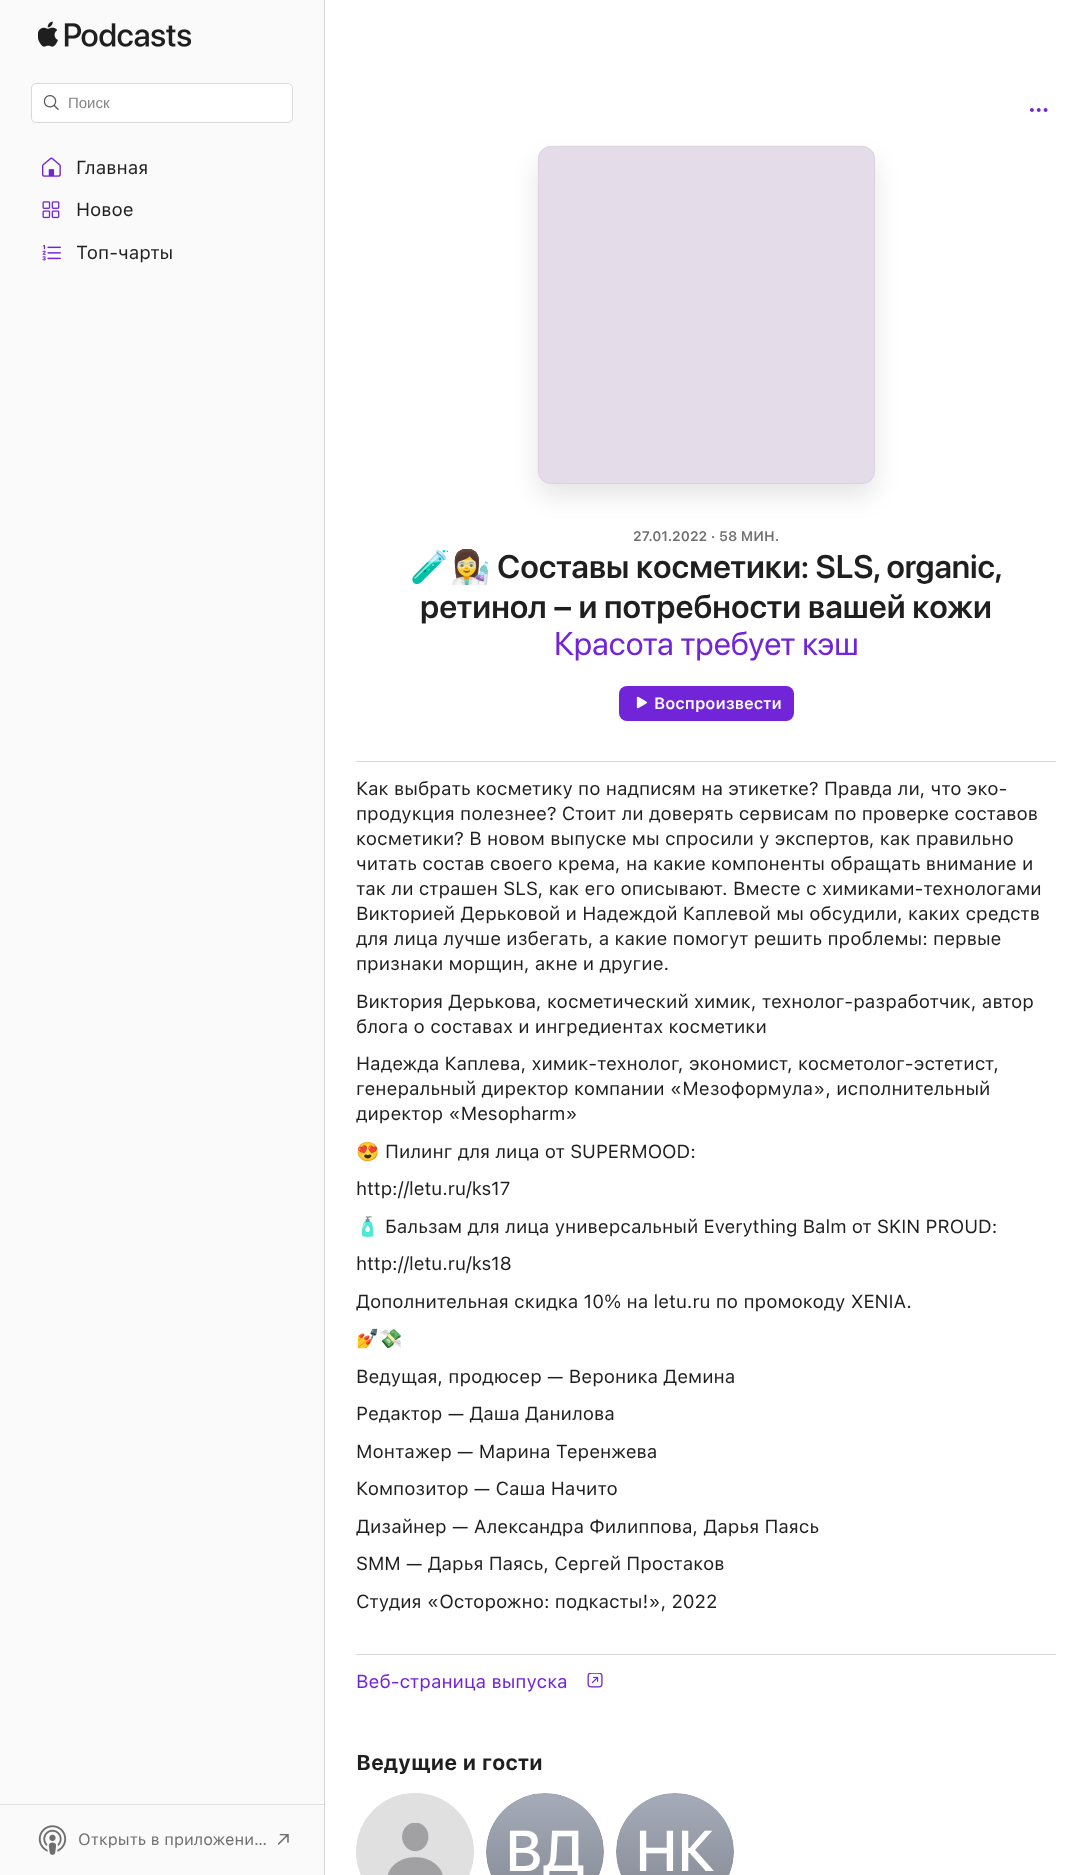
<?xml version="1.0" encoding="UTF-8"?>
<svg xmlns="http://www.w3.org/2000/svg" width="1087" height="1875">
    <defs>
        <filter id="blur1" x="-50%" y="-200%" width="200%" height="500%"><feGaussianBlur stdDeviation="12.5"/></filter>
        <clipPath id="clip1"><rect x="356" y="1793" width="118" height="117" rx="58.5"/></clipPath>
        <clipPath id="clip2"><rect x="486" y="1793" width="118" height="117" rx="58.5"/></clipPath>
        <linearGradient id="g1" gradientUnits="userSpaceOnUse" x1="545" y1="1793" x2="545" y2="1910"><stop offset="0" stop-color="#A5ABB8"/><stop offset="1" stop-color="#848993"/></linearGradient>
        <clipPath id="clip3"><rect x="616" y="1793" width="118" height="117" rx="58.5"/></clipPath>
        <linearGradient id="g2" gradientUnits="userSpaceOnUse" x1="675" y1="1793" x2="675" y2="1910"><stop offset="0" stop-color="#A5ABB8"/><stop offset="1" stop-color="#848993"/></linearGradient>
    </defs>
    <rect width="100%" height="100%" fill="#FFFFFF"/>
    <rect x="0" y="0" width="324" height="1875" fill="#FAFAFA"/>
    <rect x="0" y="1804" width="325" height="1" fill="#E1E1E1"/>
    <rect x="324" y="0" width="1" height="1875" fill="#D5D5D5"/>
    <rect x="324" y="1804" width="1" height="1" fill="#C0C0C0"/>
    <image x="38" y="21" width="153" height="26" href="img_01.png"/>
    <rect x="31.5" y="83.5" width="261" height="39" rx="4.5" fill="#FFFFFF" stroke="#D9D9D9"/>
    <image x="44" y="95" width="15" height="15" href="img_02.png"/>
    <text x="68" y="108" font-family="Liberation Sans" font-size="15" fill="#858585">Поиск</text>
    <image x="41" y="157" width="20" height="20" href="img_03.png"/>
    <text x="76" y="174" font-family="'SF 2'" font-size="18.75" fill="#1F1F1F">Главная</text>
    <image x="42" y="201" width="18" height="18" href="img_04.png"/>
    <text x="76" y="216" font-family="'SF 2'" font-size="18.75" fill="#1F1F1F">Новое</text>
    <image x="42" y="245" width="19" height="16" href="img_05.png"/>
    <text x="76" y="259" font-family="'SF 2'" font-size="18.75" fill="#1F1F1F">Топ-чарты</text>
    <image x="38" y="1825" width="29" height="30" href="img_06.png"/>
    <text x="78" y="1845" font-family="'SF 2'" font-size="16.25" fill="#707070">Открыть в приложени…</text>
    <image x="278" y="1834" width="11" height="11" href="img_07.png"/>
    <image x="1030" y="108" width="18" height="4" href="img_08.png"/>
    <rect x="538" y="159" width="337" height="337" rx="13" fill="#000000" fill-opacity="0.1" filter="url(#blur1)"/>
    <rect x="538" y="146" width="337" height="338" rx="13" fill="#E5DCEA"/>
    <rect x="538.5" y="146.5" width="336" height="337" rx="12.5" fill="none" stroke="#808080" stroke-opacity="0.1"/>
    <text x="633" y="541" font-family="SF" font-size="13.75" font-weight="600" fill="#707070">27.01.2022 · 58 МИН.</text>
    <text x="410" y="578" font-family="Noto Color Emoji" font-size="32.5" fill="#1F1F1F">🧪👩‍🔬</text>
    <text x="497" y="578" font-family="'SF 2'" font-size="32.5" font-weight="600" fill="#1F1F1F">Составы косметики: SLS, organic,</text>
    <text x="420" y="618" font-family="'SF 2'" font-size="32.5" font-weight="600" fill="#1F1F1F">ретинол – и потребности вашей кожи</text>
    <text x="554" y="655" font-family="SF" font-size="32.5" fill="#7224D8">Красота требует кэш</text>
    <rect x="619" y="686" width="175" height="35" rx="8" fill="#7224D8"/>
    <image x="636" y="696" width="11" height="13" href="img_09.png"/>
    <text x="654" y="709" font-family="SF" font-size="16.25" font-weight="600" fill="#FFFFFF">Воспроизвести</text>
    <rect x="356" y="761" width="700" height="1" fill="#D9D9D9"/>
    <text font-family="'SF 2'" font-size="18.75" fill="#1F1F1F">
        <tspan x="356" y="795">Как выбрать косметику по надписям на этикетке? Правда ли, что эко-</tspan>
        <tspan x="356" y="820">продукция полезнее? Стоит ли доверять сервисам по проверке составов</tspan>
        <tspan x="356" y="845">косметики? В новом выпуске мы спросили у экспертов, как правильно</tspan>
        <tspan x="356" y="870">читать состав своего крема, на какие компоненты обращать внимание и</tspan>
        <tspan x="356" y="895">так ли страшен SLS, как его описывают. Вместе с химиками-технологами</tspan>
        <tspan x="356" y="920">Викторией Дерьковой и Надеждой Каплевой мы обсудили, каких средств</tspan>
        <tspan x="356" y="945">для лица лучше избегать, а какие помогут решить проблемы: первые</tspan>
        <tspan x="356" y="970">признаки морщин, акне и другие.</tspan>
    </text>
    <text font-family="'SF 2'" font-size="18.75" fill="#1F1F1F">
        <tspan x="356" y="1008">Виктория Дерькова, косметический химик, технолог-разработчик, автор</tspan>
        <tspan x="356" y="1033">блога о составах и ингредиентах косметики</tspan>
        <tspan x="356" y="1070">Надежда Каплева, химик-технолог, экономист, косметолог-эстетист,</tspan>
        <tspan x="356" y="1095">генеральный директор компании «Мезоформула», исполнительный</tspan>
        <tspan x="356" y="1120">директор «Mesopharm»</tspan>
    </text>
    <text x="356" y="1158" font-family="Noto Color Emoji" font-size="18.75" fill="#1F1F1F">😍</text>
    <text x="385" y="1158" font-family="'SF 2'" font-size="18.75" fill="#1F1F1F">Пилинг для лица от SUPERMOOD:</text>
    <text x="356" y="1195" font-family="'SF 2'" font-size="18.75" fill="#1F1F1F">http://letu.ru/ks17</text>
    <text x="356" y="1233" font-family="Noto Color Emoji" font-size="18.75" fill="#1F1F1F">🧴</text>
    <text x="385" y="1233" font-family="'SF 2'" font-size="18.75" fill="#1F1F1F">Бальзам для лица универсальный Everything Balm от SKIN PROUD:</text>
    <text x="356" y="1270" font-family="'SF 2'" font-size="18.75" fill="#1F1F1F">http://letu.ru/ks18</text>
    <text x="356" y="1308" font-family="'SF 2'" font-size="18.75" fill="#1F1F1F">Дополнительная скидка 10% на letu.ru по промокоду XENIA.</text>
    <text x="356" y="1345" font-family="'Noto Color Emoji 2'" font-size="18.75" fill="#1F1F1F">💅💸</text>
    <text font-family="'SF 2'" font-size="18.75" fill="#1F1F1F">
        <tspan x="356" y="1383">Ведущая, продюсер — Вероника Демина</tspan>
        <tspan x="356" y="1420">Редактор — Даша Данилова</tspan>
    </text>
    <text font-family="'SF 2'" font-size="18.75" fill="#1F1F1F">
        <tspan x="356" y="1458">Монтажер — Марина Теренжева</tspan>
        <tspan x="356" y="1495">Композитор — Саша Начито</tspan>
    </text>
    <text font-family="'SF 2'" font-size="18.75" fill="#1F1F1F">
        <tspan x="356" y="1533">Дизайнер — Александра Филиппова, Дарья Паясь</tspan>
        <tspan x="356" y="1570">SMM — Дарья Паясь, Сергей Простаков</tspan>
    </text>
    <text x="356" y="1608" font-family="'SF 2'" font-size="18.75" fill="#1F1F1F">Студия «Осторожно: подкасты!», 2022</text>
    <rect x="356" y="1654" width="700" height="1" fill="#D9D9D9"/>
    <text x="356" y="1688" font-family="'SF 2'" font-size="18.75" fill="#7224D8">Веб-страница выпуска</text>
    <image x="587" y="1673" width="16" height="15" href="img_10.png"/>
    <text x="356" y="1770" font-family="SF" font-size="21.25" font-weight="700" fill="#1F1F1F">Ведущие и гости</text>
    <rect x="356.5" y="1793.5" width="117" height="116" rx="58" fill="none" stroke="#808080" stroke-opacity="0.1"/>
    <g clip-path="url(#clip1)">
        <g clip-path="url(#clip1)">
            <path d="M 414.5 1793 H 415.5 C 448 1793 474 1819 474 1851.5 V 1875 H 356 V 1851.5 C 356 1819 382 1793 414.5 1793 Z" fill="#EBEBEB"/>
        </g>
    </g>
    <image x="388" y="1823" width="55" height="52" href="img_11.png"/>
    <path d="M 414 1793 H 416 C 448 1793 474 1819 474 1852 C 474 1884 448 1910 416 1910 H 414 C 382 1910 356 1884 356 1852 C 356 1819 382 1793 414 1793 Z" fill="#808080" fill-opacity="0.1"/>
    <g clip-path="url(#clip2)">
        <g clip-path="url(#clip2)">
            <path d="M 544.5 1793 H 545.5 C 578 1793 604 1819 604 1851.5 V 1875 H 486 V 1851.5 C 486 1819 512 1793 544.5 1793 Z" fill="url(#g1)"/>
        </g>
    </g>
    <rect x="486.5" y="1793.5" width="117" height="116" rx="58" fill="none" stroke="#808080" stroke-opacity="0.1"/>
    <text x="506" y="1871" font-family="SF" font-size="57" font-weight="500" letter-spacing="1" fill="#FFFFFF">ВД</text>
    <g clip-path="url(#clip3)">
        <g clip-path="url(#clip3)">
            <path d="M 674.5 1793 H 675.5 C 708 1793 734 1819 734 1851.5 V 1875 H 616 V 1851.5 C 616 1819 642 1793 674.5 1793 Z" fill="url(#g2)"/>
        </g>
    </g>
    <rect x="616.5" y="1793.5" width="117" height="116" rx="58" fill="none" stroke="#808080" stroke-opacity="0.1"/>
    <text x="636" y="1871" font-family="SF" font-size="57" font-weight="500" letter-spacing="1" fill="#FFFFFF">НК</text>
</svg>
